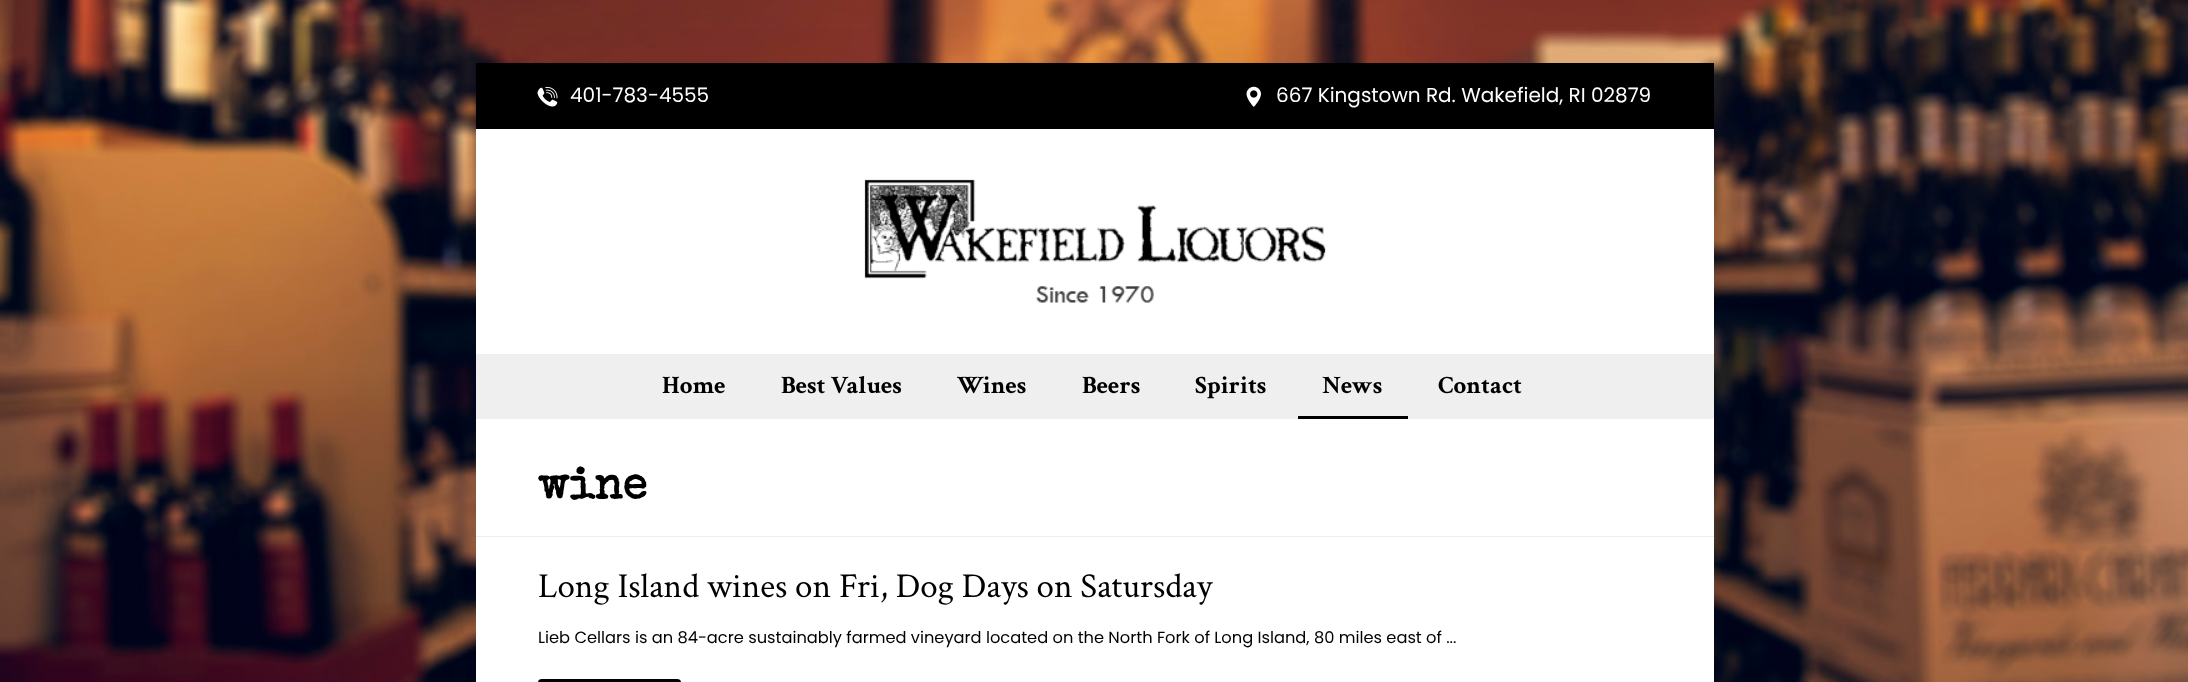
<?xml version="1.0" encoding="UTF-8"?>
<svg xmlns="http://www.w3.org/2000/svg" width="2188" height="682">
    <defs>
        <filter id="blur1" x="-50%" y="-200%" width="200%" height="500%"><feGaussianBlur stdDeviation="62.5"/></filter>
    </defs>
    <rect width="100%" height="100%" fill="#FFFFFF"/>
    <image x="0" y="0" width="2188" height="682" href="img_01.png"/>
    <rect x="476" y="63" width="1238" height="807" fill="#000000" fill-opacity="0.1" filter="url(#blur1)"/>
    <rect x="476" y="129" width="1238" height="553" fill="#FFFFFF"/>
    <rect x="476" y="63" width="1238" height="66" fill="#000000"/>
    <image x="537" y="87" width="21" height="20" href="img_02.png"/>
    <text x="570" y="102" font-family="Poppins" font-size="20" fill="#FFFFFF">401-783-4555</text>
    <image x="1246" y="86" width="15" height="21" href="img_03.png"/>
    <text x="1276" y="102" font-family="Poppins" font-size="20" fill="#FFFFFF">667 Kingstown Rd. Wakefield, RI 02879</text>
    <image x="864" y="179" width="462" height="124" href="img_04.png"/>
    <rect x="476" y="354" width="1238" height="65" fill="#EFEFEF"/>
    <text x="662" y="393" font-family="Crimson Text" font-size="25" font-weight="700" fill="#000000">Home</text>
    <text x="781" y="393" font-family="Crimson Text" font-size="25" font-weight="700" fill="#000000">Best Values</text>
    <text x="957" y="393" font-family="Crimson Text" font-size="25" font-weight="700" fill="#000000">Wines</text>
    <text x="1082" y="393" font-family="Crimson Text" font-size="25" font-weight="700" fill="#000000">Beers</text>
    <text x="1195" y="393" font-family="Crimson Text" font-size="25" font-weight="700" fill="#000000">Spirits</text>
    <text x="1322" y="393" font-family="Crimson Text" font-size="25" font-weight="700" fill="#000000">News</text>
    <rect x="1298" y="416" width="110" height="3" fill="#000001"/>
    <text x="1438" y="393" font-family="Crimson Text" font-size="25" font-weight="700" fill="#000000">Contact</text>
    <rect x="476" y="536" width="1238" height="1" fill="#EFEFEF"/>
    <text x="538" y="498" font-family="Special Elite" font-size="45" font-weight="700" fill="#000000">wine</text>
    <text x="538" y="597" font-family="Crimson Text" font-size="35" fill="#000000">Long Island wines on Fri, Dog Days on Satursday</text>
    <text x="538" y="643" font-family="Poppins" font-size="16.25" fill="#000000">Lieb Cellars is an 84-acre sustainably farmed vineyard located on the North Fork of Long Island, 80 miles east of ...</text>
    <rect x="538" y="679" width="143" height="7" rx="4" fill="#000001"/>
</svg>
